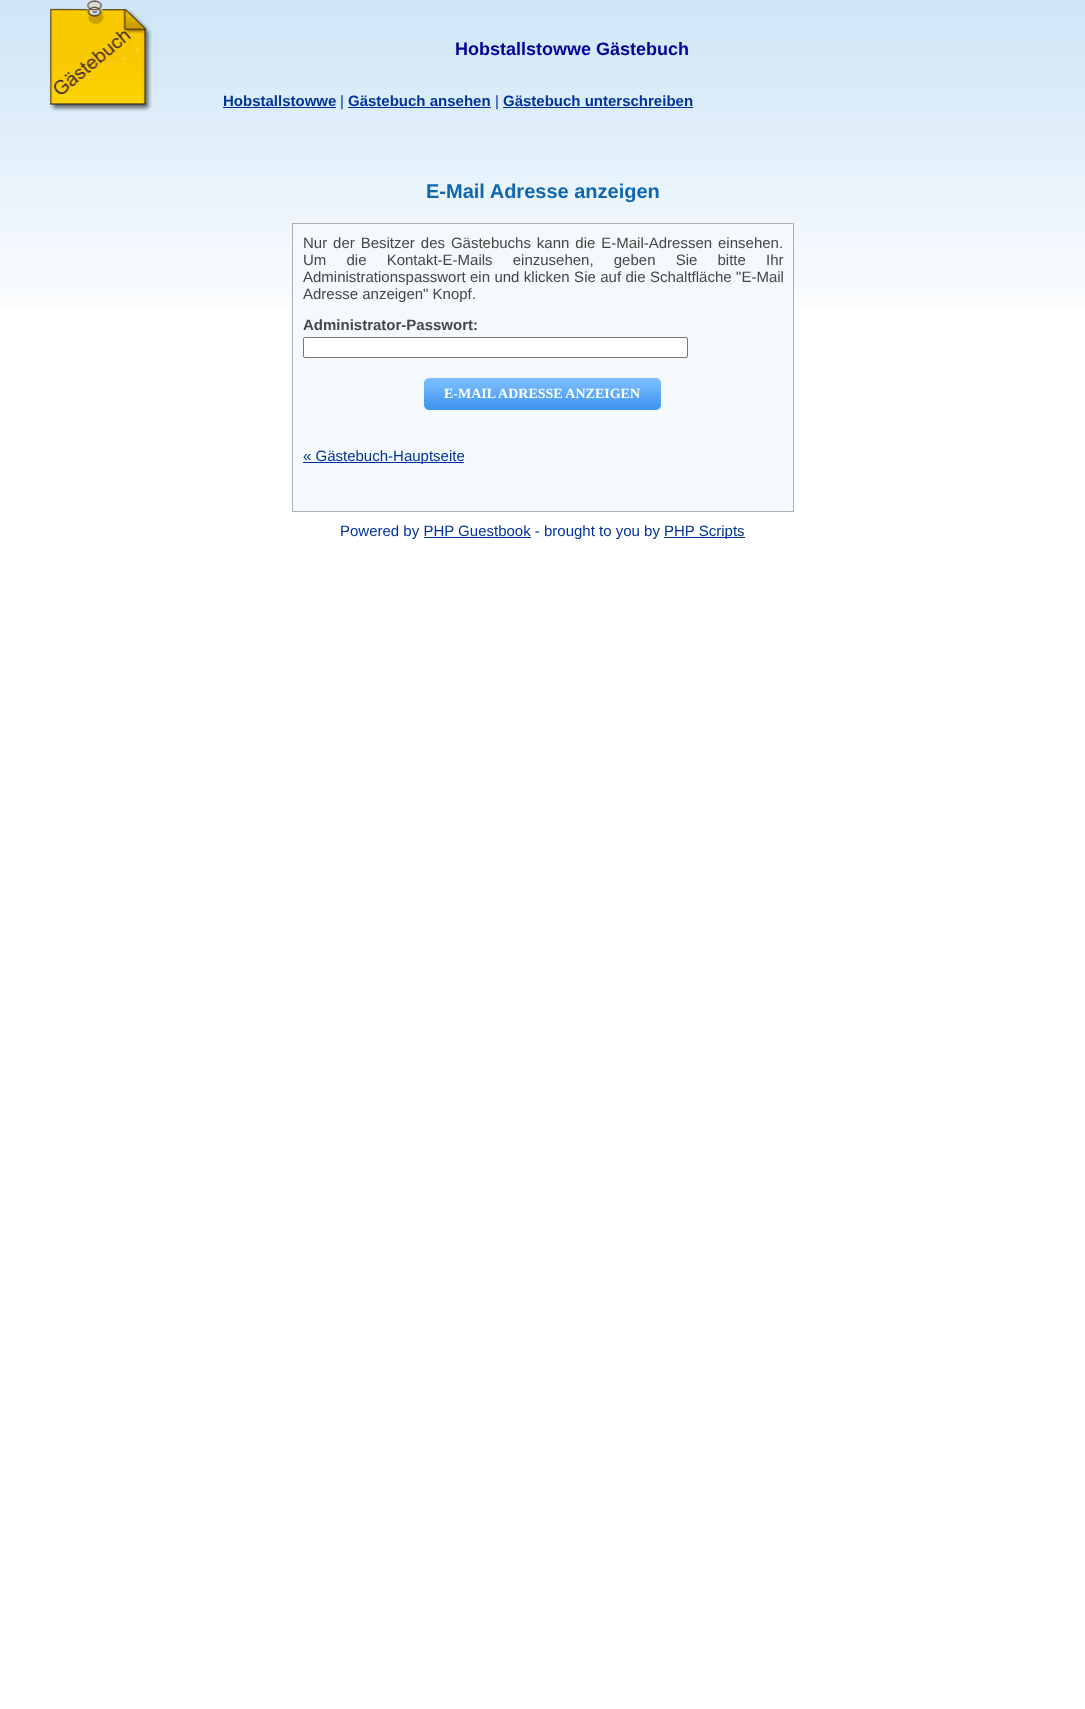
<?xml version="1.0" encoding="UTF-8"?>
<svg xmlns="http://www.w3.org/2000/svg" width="1085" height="1709">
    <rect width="100%" height="100%" fill="#FFFFFF"/>
    <image x="0" y="0" width="1085" height="306" href="img_01.png"/>
    <image x="49" y="0" width="103" height="112" href="img_02.png"/>
    <text x="455" y="55" font-family="Liberation Sans" font-size="18" font-weight="700" fill="#010097">Hobstallstowwe Gästebuch</text>
    <text x="223" y="106" font-family="Liberation Sans" font-size="15" font-weight="700" fill="#003399">Hobstallstowwe</text>
    <rect x="223" y="107" width="113" height="1" fill="#003399"/>
    <text x="340" y="106" font-family="Liberation Sans" font-size="15" fill="#003399">|</text>
    <text x="348" y="106" font-family="Liberation Sans" font-size="15" font-weight="700" fill="#003399">Gästebuch ansehen</text>
    <rect x="348" y="107" width="143" height="1" fill="#003399"/>
    <text x="495" y="106" font-family="Liberation Sans" font-size="15" fill="#003399">|</text>
    <text x="503" y="106" font-family="Liberation Sans" font-size="15" font-weight="700" fill="#003399">Gästebuch unterschreiben</text>
    <rect x="503" y="107" width="190" height="1" fill="#003399"/>
    <text x="426" y="198" font-family="Liberation Sans" font-size="20" font-weight="700" fill="#0E67AF">E-Mail Adresse anzeigen</text>
    <rect x="292.5" y="223.5" width="501" height="288" fill="#F4F9FD" stroke="#B0B0B1"/>
    <text font-family="Liberation Sans" font-size="15" fill="#464645">
        <tspan x="303" y="248" word-spacing="1.75">Nur der Besitzer des Gästebuchs kann die E-Mail-Adressen einsehen.</tspan>
        <tspan x="303" y="265" word-spacing="16">Um die Kontakt-E-Mails einzusehen, geben Sie bitte Ihr</tspan>
        <tspan x="303" y="282" word-spacing="0.25">Administrationspasswort ein und klicken Sie auf die Schaltfläche "E-Mail</tspan>
        <tspan x="303" y="299">Adresse anzeigen" Knopf.</tspan>
    </text>
    <text x="303" y="330" font-family="Liberation Sans" font-size="15" font-weight="700" fill="#464645">Administrator-Passwort:</text>
    <rect x="303.5" y="337.5" width="384" height="20" rx="1.5" fill="#FFFFFF" stroke="#767676"/>
    <image x="424" y="378" width="237" height="32" href="img_03.png"/>
    <text x="444" y="398" font-family="Liberation Serif" font-size="14" font-weight="700" fill="#FFFFFF">E-MAIL ADRESSE ANZEIGEN</text>
    <rect x="303" y="462" width="161" height="1" fill="#003399"/>
    <text x="303" y="461" font-family="Liberation Sans" font-size="15" fill="#003399">« Gästebuch-Hauptseite</text>
    <text x="340" y="536" font-family="Liberation Sans" font-size="15" fill="#003399">Powered by PHP Guestbook - brought to you by</text>
    <rect x="664" y="537" width="81" height="1" fill="#003399"/>
    <text x="664" y="536" font-family="Liberation Sans" font-size="15" fill="#003399">PHP Scripts</text>
    <rect x="424" y="537" width="107" height="1" fill="#003399"/>
</svg>
